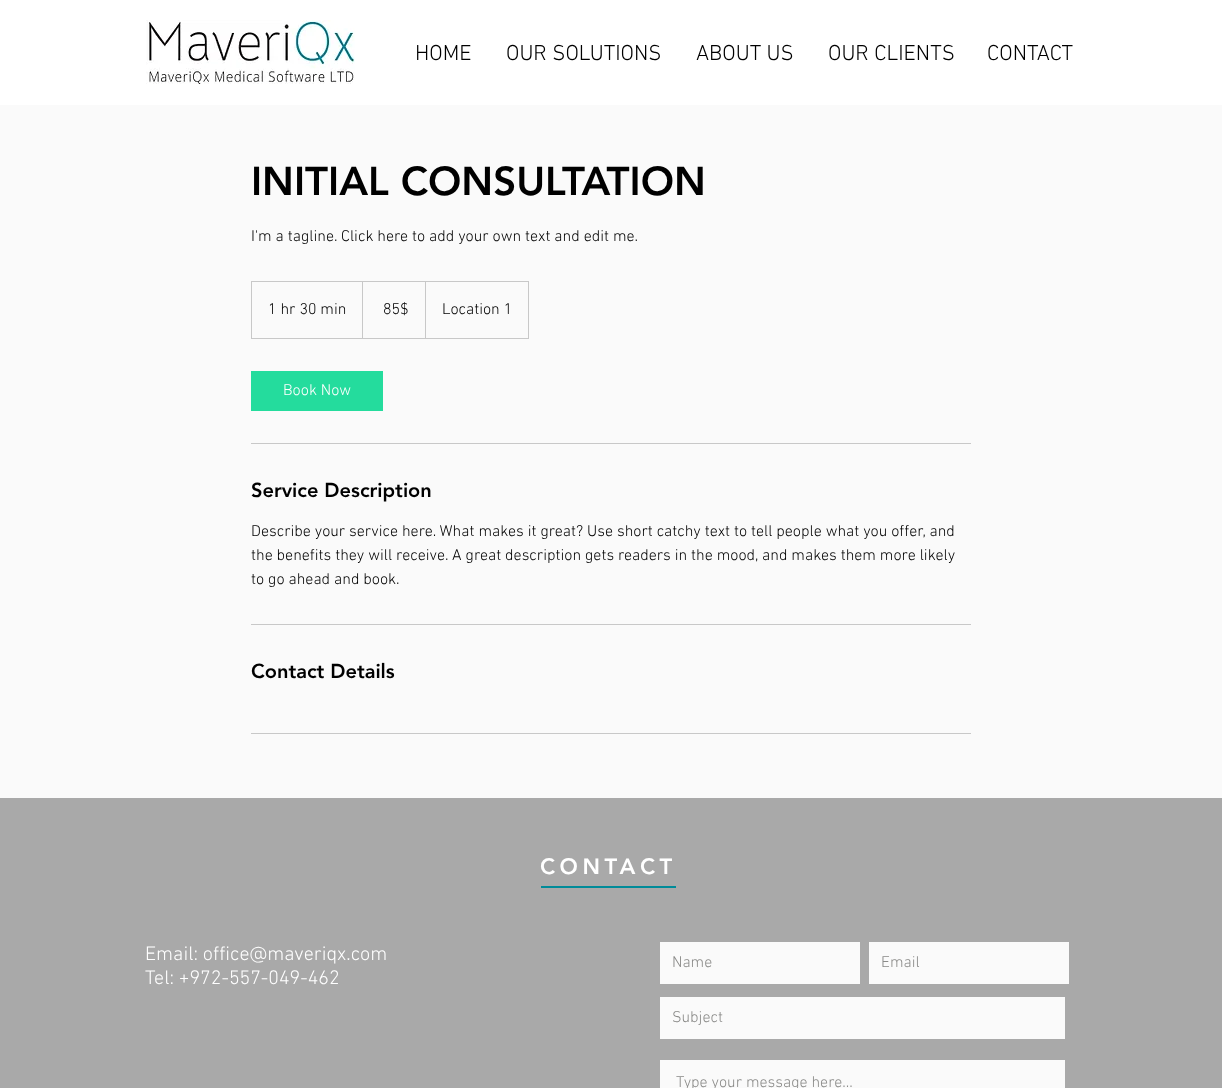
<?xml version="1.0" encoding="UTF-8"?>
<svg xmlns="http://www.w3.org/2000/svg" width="1222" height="1088">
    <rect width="100%" height="100%" fill="#FAFAFA"/>
    <rect x="0" y="0" width="1222" height="105" fill="#FFFFFF"/>
    <image x="146" y="20" width="209" height="64" href="img_01.png"/>
    <text x="415" y="60" font-family="'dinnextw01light'" font-size="22" font-weight="300" fill="#000000">HOME</text>
    <text x="506" y="60" font-family="'dinnextw01light'" font-size="22" font-weight="300" fill="#000000">OUR SOLUTIONS</text>
    <text x="696" y="60" font-family="'dinnextw01light'" font-size="22" font-weight="300" fill="#000000">ABOUT US</text>
    <text x="828" y="60" font-family="'dinnextw01light'" font-size="22" font-weight="300" fill="#000000">OUR CLIENTS</text>
    <text x="987" y="60" font-family="'dinnextw01light'" font-size="22" font-weight="300" fill="#000000">CONTACT</text>
    <text x="251" y="195" font-family="'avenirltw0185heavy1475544'" font-size="40" font-weight="900" fill="#000000">INITIAL CONSULTATION</text>
    <text x="251" y="241" font-family="'dinnextw01light'" font-size="16" font-weight="300" fill="#000000">I'm a tagline. Click here to add your own text and edit me.</text>
    <rect x="251.5" y="281.5" width="277" height="57" fill="none" stroke="#C8C8C8"/>
    <text x="268" y="314" font-family="'dinnextw01light'" font-size="16" font-weight="300" fill="#000000">1 hr 30 min</text>
    <path d="M 362 338 V 281 L 363 282 V 338 Z" fill="#C8C8C8"/>
    <text x="383" y="314" font-family="'dinnextw01light'" font-size="16" font-weight="300" fill="#000000">85$</text>
    <path d="M 425 338 V 281 L 426 282 V 338 Z" fill="#C8C8C8"/>
    <text x="442" y="314" font-family="'dinnextw01light'" font-size="16" font-weight="300" fill="#000000">Location 1</text>
    <rect x="251" y="371" width="132" height="40" fill="#24DC9D"/>
    <text x="283" y="395" font-family="'dinnextw01light'" font-size="16" font-weight="300" fill="#FFFFFF">Book Now</text>
    <rect x="251" y="443" width="720" height="1" fill="#C8C8C8"/>
    <text x="251" y="497" font-family="'avenirltw0185heavy1475544'" font-size="20" font-weight="900" fill="#000000">Service Description</text>
    <text font-family="'dinnextw01light'" font-size="16" font-weight="300" fill="#000000">
        <tspan x="251" y="536">Describe your service here. What makes it great? Use short catchy text to tell people what you offer, and</tspan>
        <tspan x="251" y="560">the benefits they will receive. A great description gets readers in the mood, and makes them more likely</tspan>
        <tspan x="251" y="584">to go ahead and book.</tspan>
    </text>
    <rect x="251" y="624" width="720" height="1" fill="#C8C8C8"/>
    <text x="251" y="678" font-family="'avenirltw0185heavy1475544'" font-size="20" font-weight="900" fill="#000000">Contact Details</text>
    <rect x="251" y="733" width="720" height="1" fill="#C8C8C8"/>
    <rect x="0" y="798" width="1222" height="290" fill="#A9A9A9"/>
    <text x="540" y="874" font-family="'avenirltw0185heavy1475544'" font-size="22" font-weight="900" letter-spacing="4.5" fill="#FFFFFF">CONTACT</text>
    <rect x="541" y="886" width="135" height="2" fill="#008B99"/>
    <text font-family="'dinnextw01light'" font-size="20" font-weight="300" fill="#FFFFFF">
        <tspan x="145" y="960">Email: office@maveriqx.com</tspan>
        <tspan x="145" y="984">Tel: +972-557-049-462</tspan>
    </text>
    <rect x="660" y="942" width="200" height="42" fill="#FAFAFA"/>
    <text x="672" y="967" font-family="'dinnextw01light'" font-size="16" font-weight="300" fill="#8A8A88">Name</text>
    <rect x="869" y="942" width="200" height="42" fill="#FAFAFA"/>
    <text x="881" y="967" font-family="'dinnextw01light'" font-size="16" font-weight="300" fill="#8A8A88">Email</text>
    <rect x="660" y="997" width="405" height="42" fill="#FAFAFA"/>
    <text x="672" y="1022" font-family="'dinnextw01light'" font-size="16" font-weight="300" fill="#8A8A88">Subject</text>
    <rect x="660" y="1060" width="405" height="28" fill="#FAFAFA"/>
    <text x="676" y="1087" font-family="'dinnextw01light'" font-size="16" font-weight="300" fill="#8A8A88">Type your message here...</text>
</svg>
